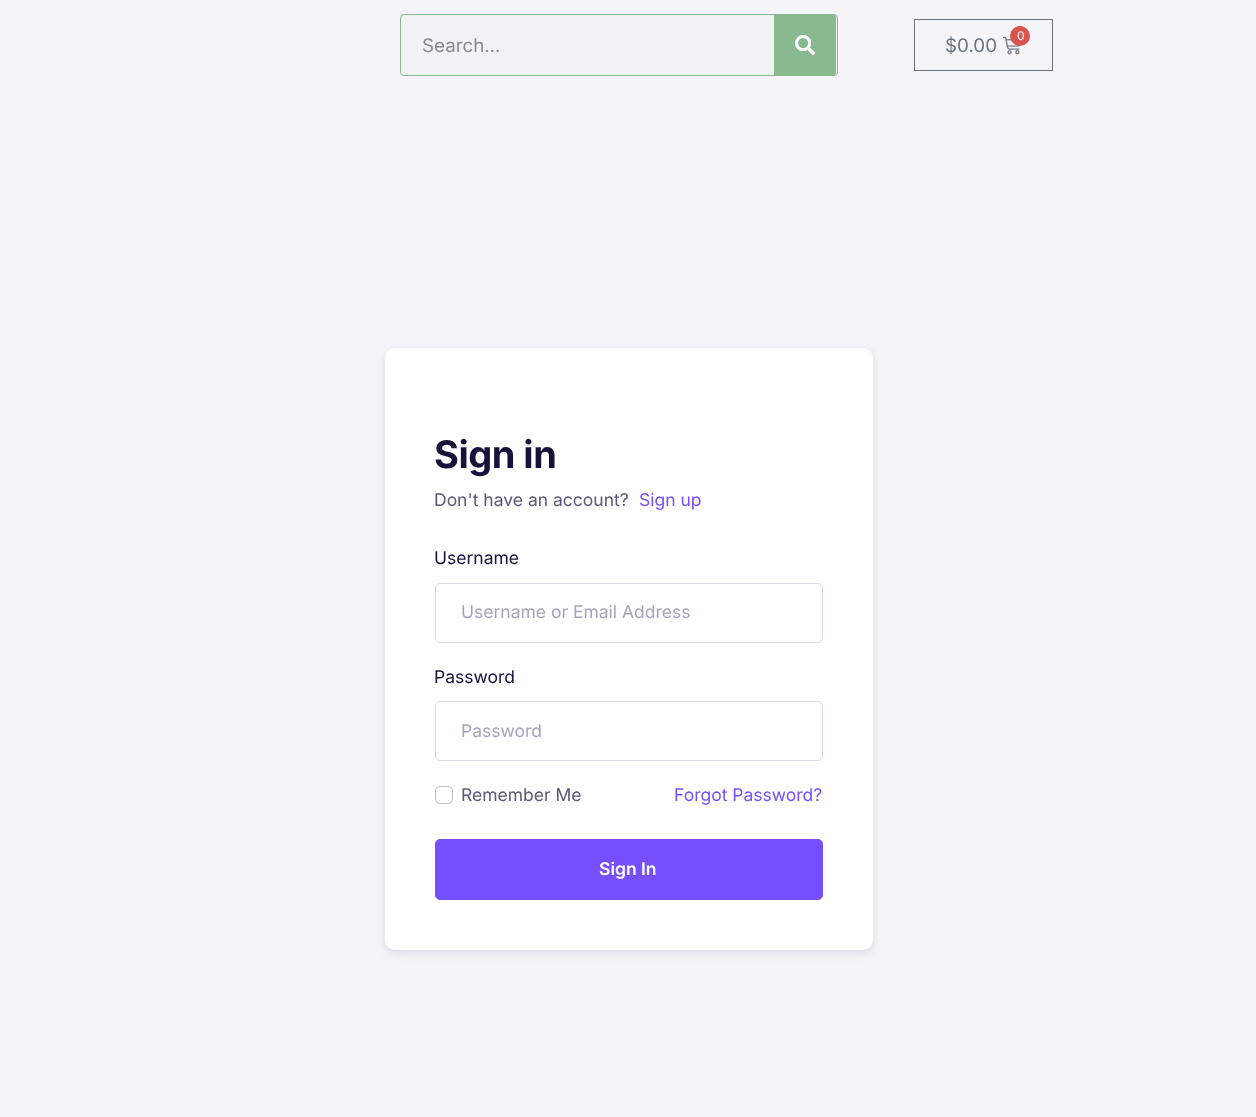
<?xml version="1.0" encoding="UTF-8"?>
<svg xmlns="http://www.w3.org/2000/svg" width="1256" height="1117">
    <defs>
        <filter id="blur1" x="-50%" y="-200%" width="200%" height="500%"><feGaussianBlur stdDeviation="4"/></filter>
    </defs>
    <rect width="100%" height="100%" fill="#F5F4F8"/>
    <rect x="400.5" y="14.5" width="437" height="61" rx="3.5" fill="#F1F2F3" stroke="#89B98E"/>
    <text x="422" y="52" font-family="Inter" font-size="18.75" fill="#868A8E">Search...</text>
    <path d="M 774 15 H 833.5 C 835 15 836 16 836 17.5 V 72.5 C 836 74 835 75 833.5 75 H 774 Z" fill="#89B98E"/>
    <image x="795" y="35" width="20" height="20" href="img_01.png"/>
    <rect x="914.5" y="19.5" width="138" height="51" fill="none" stroke="#69727D"/>
    <text x="945" y="52" font-family="Inter" font-size="18.75" fill="#69727D">$0.00</text>
    <image x="1003" y="36" width="18" height="19" href="img_02.png"/>
    <circle cx="1020" cy="36" r="10" fill="#D9534F"/>
    <text x="1017" y="40" font-family="Inter" font-size="12" fill="#FFFFFF">0</text>
    <rect x="385" y="351" width="488" height="603" rx="10" fill="#030047" fill-opacity="0.1" filter="url(#blur1)"/>
    <rect x="385" y="348" width="488" height="602" rx="10" fill="#FFFFFF"/>
    <text x="434" y="468" font-family="Inter" font-size="38" font-weight="700" letter-spacing="-0.5" fill="#18113C">Sign in</text>
    <text x="434" y="506" font-family="Inter" font-size="17.5" fill="#5C5776">Don't have an account?</text>
    <text x="639" y="506" font-family="Inter" font-size="17.5" fill="#754FFE">Sign up</text>
    <text x="434" y="564" font-family="Inter" font-size="17.5" fill="#18113C">Username</text>
    <rect x="435.5" y="583.5" width="387" height="59" rx="4.5" fill="none" stroke="#DBD8E9"/>
    <text x="461" y="618" font-family="Inter" font-size="17.5" fill="#A8A3B9">Username or Email Address</text>
    <text x="434" y="683" font-family="Inter" font-size="17.5" fill="#18113C">Password</text>
    <rect x="435.5" y="701.5" width="387" height="59" rx="4.5" fill="none" stroke="#DBD8E9"/>
    <text x="461" y="737" font-family="Inter" font-size="17.5" fill="#A8A3B9">Password</text>
    <rect x="435.5" y="786.5" width="17" height="17" rx="4.5" fill="none" stroke="#BFBFBF"/>
    <text x="461" y="801" font-family="Inter" font-size="17.5" fill="#5C5776">Remember Me</text>
    <text x="674" y="801" font-family="Inter" font-size="17.5" fill="#754FFE">Forgot Password?</text>
    <rect x="435.5" y="839.5" width="387" height="60" rx="4.5" fill="#754FFE" stroke="#754FFE"/>
    <text x="599" y="875" font-family="Inter" font-size="17.5" font-weight="600" fill="#FFFFFF">Sign In</text>
</svg>
